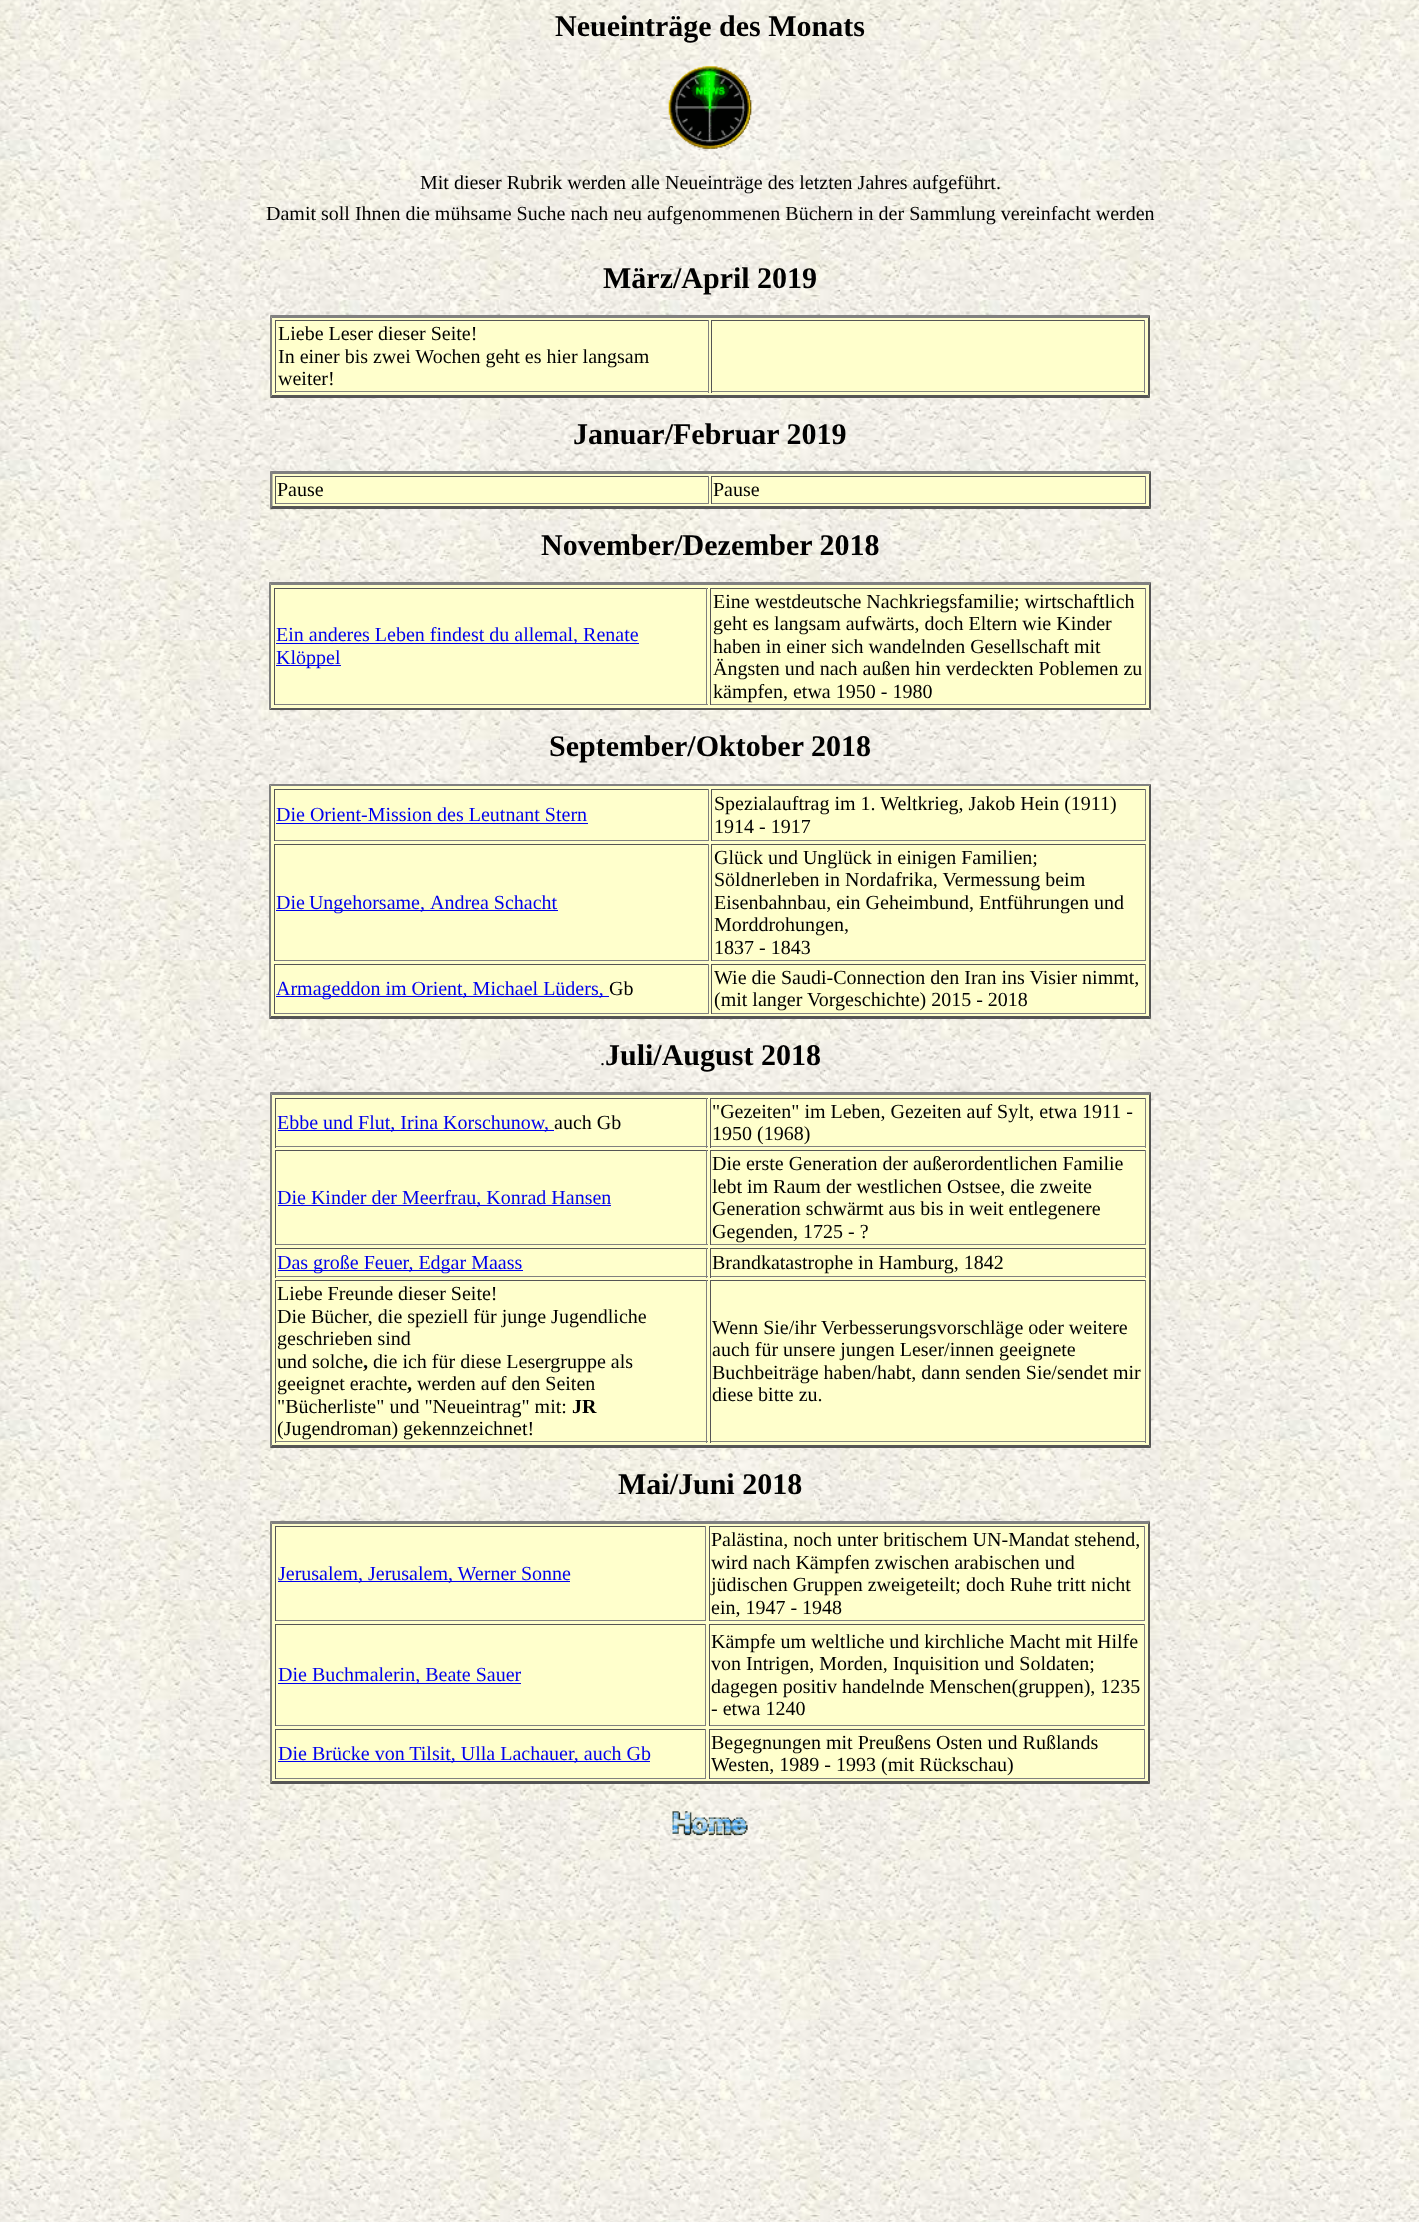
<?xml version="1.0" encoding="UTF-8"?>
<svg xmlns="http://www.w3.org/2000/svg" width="1419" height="2222">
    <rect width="100%" height="100%" fill="#FFFFFF"/>
    <image x="0" y="0" width="1419" height="2222" href="img_01.png"/>
    <text x="555" y="36" font-family="Liberation Serif" font-size="30" font-weight="700" fill="#000000">Neueinträge des Monats</text>
    <image x="668" y="66" width="84" height="83" href="img_02.png"/>
    <text x="420" y="189" font-family="Liberation Serif" font-size="20" fill="#000000">Mit dieser Rubrik werden alle Neueinträge des letzten Jahres aufgeführt.</text>
    <text x="266" y="220" font-family="Liberation Serif" font-size="20" fill="#000000">Damit soll Ihnen die mühsame Suche nach neu aufgenommenen Büchern in der Sammlung vereinfacht werden</text>
    <text x="603" y="288" font-family="Liberation Serif" font-size="30" font-weight="700" fill="#000000">März/April 2019</text>
    <rect x="270" y="315" width="880" height="83" fill="#FFFFCC"/>
    <path d="M 270 315 H 1150 L 1148 318 H 272 Z" fill="#808080"/>
    <path d="M 1150 315 V 398 L 1148 395 V 318 Z" fill="#555555"/>
    <path d="M 1150 398 H 270 L 272 395 H 1148 Z" fill="#555555"/>
    <path d="M 270 398 V 315 L 272 318 V 395 Z" fill="#808080"/>
    <rect x="275" y="320" width="434" height="1" fill="#555555"/>
    <rect x="708" y="320" width="1" height="73" fill="#808080"/>
    <rect x="275" y="391" width="434" height="1" fill="#808080"/>
    <rect x="275" y="320" width="1" height="73" fill="#555555"/>
    <text font-family="Liberation Serif" font-size="20" fill="#000000">
        <tspan x="278" y="340">Liebe Leser dieser Seite!</tspan>
        <tspan x="278" y="363">In einer bis zwei Wochen geht es hier langsam</tspan>
        <tspan x="278" y="385">weiter!</tspan>
    </text>
    <rect x="711" y="320" width="434" height="1" fill="#555555"/>
    <rect x="1144" y="320" width="1" height="73" fill="#808080"/>
    <rect x="711" y="391" width="434" height="1" fill="#808080"/>
    <rect x="711" y="320" width="1" height="73" fill="#555555"/>
    <text x="573" y="444" font-family="Liberation Serif" font-size="30" font-weight="700" fill="#000000">Januar/Februar 2019</text>
    <rect x="270" y="471" width="881" height="38" fill="#FFFFCC"/>
    <path d="M 270 471 H 1151 L 1149 474 H 272 Z" fill="#808080"/>
    <path d="M 1151 471 V 509 L 1149 506 V 474 Z" fill="#555555"/>
    <path d="M 1151 509 H 270 L 272 506 H 1149 Z" fill="#555555"/>
    <path d="M 270 509 V 471 L 272.5 474 V 506 Z" fill="#808080"/>
    <rect x="275" y="476" width="434" height="1" fill="#555555"/>
    <rect x="708" y="476" width="1" height="28" fill="#808080"/>
    <rect x="275" y="503" width="434" height="1" fill="#808080"/>
    <rect x="275" y="476" width="1" height="28" fill="#555555"/>
    <text x="277" y="496" font-family="Liberation Serif" font-size="20" fill="#000000">Pause</text>
    <rect x="711" y="476" width="435" height="1" fill="#555555"/>
    <rect x="1145" y="476" width="1" height="28" fill="#808080"/>
    <rect x="711" y="503" width="435" height="1" fill="#808080"/>
    <rect x="711" y="476" width="1" height="28" fill="#555555"/>
    <text x="713" y="496" font-family="Liberation Serif" font-size="20" fill="#000000">Pause</text>
    <text x="541" y="555" font-family="Liberation Serif" font-size="30" font-weight="700" fill="#000000">November/Dezember 2018</text>
    <rect x="269" y="583" width="882" height="127" fill="#FFFFCC"/>
    <path d="M 269 582 H 1151 L 1149 585 H 271 Z" fill="#808080"/>
    <path d="M 1151 582 V 710 L 1149 708 V 585 Z" fill="#555555"/>
    <path d="M 1151 710 H 269 L 271 708 H 1149 Z" fill="#555555"/>
    <path d="M 269 710 V 582 L 271 585 V 708 Z" fill="#808080"/>
    <rect x="274" y="588" width="434" height="1" fill="#555555"/>
    <rect x="706" y="588" width="1" height="117" fill="#808080"/>
    <rect x="274" y="704" width="434" height="1" fill="#808080"/>
    <rect x="274" y="588" width="1" height="117" fill="#555555"/>
    <rect x="276" y="643" width="363" height="1" fill="#0000EE"/>
    <text x="276" y="641" font-family="Liberation Serif" font-size="20" fill="#0000EE">Ein anderes Leben findest du allemal, Renate</text>
    <rect x="276" y="665" width="65" height="1" fill="#0000EE"/>
    <text x="276" y="664" font-family="Liberation Serif" font-size="20" fill="#0000EE">Klöppel</text>
    <rect x="710" y="588" width="436" height="1" fill="#555555"/>
    <rect x="1145" y="588" width="1" height="117" fill="#808080"/>
    <rect x="710" y="704" width="436" height="1" fill="#808080"/>
    <rect x="710" y="588" width="1" height="117" fill="#555555"/>
    <text font-family="Liberation Serif" font-size="20" fill="#000000">
        <tspan x="713" y="608">Eine westdeutsche Nachkriegsfamilie; wirtschaftlich</tspan>
        <tspan x="713" y="630">geht es langsam aufwärts, doch Eltern wie Kinder</tspan>
        <tspan x="713" y="653">haben in einer sich wandelnden Gesellschaft mit</tspan>
        <tspan x="713" y="675">Ängsten und nach außen hin verdeckten Poblemen zu</tspan>
        <tspan x="713" y="698">kämpfen, etwa 1950 - 1980</tspan>
    </text>
    <text x="549" y="756" font-family="Liberation Serif" font-size="30" font-weight="700" fill="#000000">September/Oktober 2018</text>
    <rect x="269" y="784" width="882" height="235" fill="#FFFFCC"/>
    <path d="M 269 784 H 1151 L 1149 786 H 271 Z" fill="#808080"/>
    <path d="M 1151 784 V 1019 L 1149 1016 V 786 Z" fill="#555555"/>
    <path d="M 1151 1019 H 269 L 271 1016 H 1149 Z" fill="#555555"/>
    <path d="M 269 1019 V 784 L 271 786 V 1016 Z" fill="#808080"/>
    <rect x="274" y="789" width="435" height="1" fill="#555555"/>
    <rect x="708" y="789" width="1" height="52" fill="#808080"/>
    <rect x="274" y="840" width="435" height="1" fill="#808080"/>
    <rect x="274" y="789" width="1" height="52" fill="#555555"/>
    <text x="276" y="821" font-family="Liberation Serif" font-size="20" fill="#0000EE">Die Orient-Mission des Leutnant Stern</text>
    <rect x="276" y="823" width="312" height="1" fill="#0000EE"/>
    <rect x="711" y="789" width="435" height="1" fill="#555555"/>
    <rect x="1145" y="789" width="1" height="52" fill="#808080"/>
    <rect x="711" y="840" width="435" height="1" fill="#808080"/>
    <rect x="711" y="789" width="1" height="52" fill="#555555"/>
    <text font-family="Liberation Serif" font-size="20" fill="#000000">
        <tspan x="714" y="810">Spezialauftrag im 1. Weltkrieg, Jakob Hein (1911)</tspan>
        <tspan x="714" y="833">1914 - 1917</tspan>
    </text>
    <rect x="274" y="844" width="435" height="1" fill="#555555"/>
    <rect x="708" y="844" width="1" height="117" fill="#808080"/>
    <rect x="274" y="960" width="435" height="1" fill="#808080"/>
    <rect x="274" y="844" width="1" height="117" fill="#555555"/>
    <rect x="276" y="910" width="282" height="1" fill="#0000EE"/>
    <text x="276" y="909" word-spacing="-1" font-family="Liberation Serif" font-size="20" fill="#0000EE">Die Ungehorsame,</text>
    <text x="430" y="909" font-family="Liberation Serif" font-size="20" fill="#0000EE">Andrea Schacht</text>
    <rect x="711" y="844" width="435" height="1" fill="#555555"/>
    <rect x="1145" y="844" width="1" height="117" fill="#808080"/>
    <rect x="711" y="960" width="435" height="1" fill="#808080"/>
    <rect x="711" y="844" width="1" height="117" fill="#555555"/>
    <text font-family="Liberation Serif" font-size="20" fill="#000000">
        <tspan x="714" y="864">Glück und Unglück in einigen Familien;</tspan>
        <tspan x="714" y="886">Söldnerleben in Nordafrika, Vermessung beim</tspan>
        <tspan x="714" y="909">Eisenbahnbau, ein Geheimbund, Entführungen und</tspan>
        <tspan x="714" y="931">Morddrohungen,</tspan>
        <tspan x="714" y="954">1837 - 1843</tspan>
    </text>
    <rect x="274" y="964" width="435" height="1" fill="#555555"/>
    <rect x="708" y="964" width="1" height="50" fill="#808080"/>
    <rect x="274" y="1013" width="435" height="1" fill="#808080"/>
    <rect x="274" y="964" width="1" height="50" fill="#555555"/>
    <rect x="276" y="996" width="333" height="1" fill="#0000EE"/>
    <text x="276" y="995" font-family="Liberation Serif" font-size="20" fill="#0000EE">Armageddon im Orient, Michael Lüders,</text>
    <text x="609" y="995" font-family="Liberation Serif" font-size="20" fill="#000000">Gb</text>
    <rect x="711" y="964" width="435" height="1" fill="#555555"/>
    <rect x="1145" y="964" width="1" height="50" fill="#808080"/>
    <rect x="711" y="1013" width="435" height="1" fill="#808080"/>
    <rect x="711" y="964" width="1" height="50" fill="#555555"/>
    <text font-family="Liberation Serif" font-size="20" fill="#000000">
        <tspan x="714" y="984">Wie die Saudi-Connection den Iran ins Visier nimmt,</tspan>
        <tspan x="714" y="1006">(mit langer Vorgeschichte) 2015 - 2018</tspan>
    </text>
    <text x="600" y="1065" font-family="Liberation Serif" font-size="20" fill="#000000">.</text>
    <text x="605" y="1065" font-family="Liberation Serif" font-size="30" font-weight="700" fill="#000000">Juli/August 2018</text>
    <rect x="270" y="1093" width="881" height="355" fill="#FFFFCC"/>
    <path d="M 270 1092 H 1151 L 1149 1095 H 272 Z" fill="#808080"/>
    <path d="M 1151 1092 V 1448 L 1149 1445 V 1095 Z" fill="#555555"/>
    <path d="M 1151 1448 H 270 L 272 1445 H 1149 Z" fill="#555555"/>
    <path d="M 270 1448 V 1092 L 272 1095 V 1445 Z" fill="#808080"/>
    <rect x="275" y="1098" width="433" height="1" fill="#555555"/>
    <rect x="706" y="1098" width="1" height="50" fill="#808080"/>
    <rect x="275" y="1146" width="433" height="1" fill="#808080"/>
    <rect x="275" y="1098" width="1" height="50" fill="#555555"/>
    <rect x="278" y="1130" width="276" height="1" fill="#0000EE"/>
    <text x="277" y="1129" font-family="Liberation Serif" font-size="20" fill="#0000EE">Ebbe und Flut, Irina Korschunow,</text>
    <text x="554" y="1129" font-family="Liberation Serif" font-size="20" fill="#000000">auch Gb</text>
    <rect x="710" y="1098" width="436" height="1" fill="#555555"/>
    <rect x="1145" y="1098" width="1" height="50" fill="#808080"/>
    <rect x="710" y="1146" width="436" height="1" fill="#808080"/>
    <rect x="710" y="1098" width="1" height="50" fill="#555555"/>
    <text font-family="Liberation Serif" font-size="20" fill="#000000">
        <tspan x="712" y="1118">"Gezeiten" im Leben, Gezeiten auf Sylt, etwa 1911 -</tspan>
        <tspan x="712" y="1140">1950 (1968)</tspan>
    </text>
    <rect x="275" y="1150" width="433" height="1" fill="#555555"/>
    <rect x="706" y="1150" width="1" height="95" fill="#808080"/>
    <rect x="275" y="1244" width="433" height="1" fill="#808080"/>
    <rect x="275" y="1150" width="1" height="95" fill="#555555"/>
    <rect x="278" y="1205" width="333" height="1" fill="#0000EE"/>
    <text x="277" y="1204" font-family="Liberation Serif" font-size="20" fill="#0000EE">Die Kinder der Meerfrau, Konrad Hansen</text>
    <rect x="710" y="1150" width="436" height="1" fill="#555555"/>
    <rect x="1145" y="1150" width="1" height="95" fill="#808080"/>
    <rect x="710" y="1244" width="436" height="1" fill="#808080"/>
    <rect x="710" y="1150" width="1" height="95" fill="#555555"/>
    <text font-family="Liberation Serif" font-size="20" fill="#000000">
        <tspan x="712" y="1170">Die erste Generation der außerordentlichen Familie</tspan>
        <tspan x="712" y="1193">lebt im Raum der westlichen Ostsee, die zweite</tspan>
        <tspan x="712" y="1215">Generation schwärmt aus bis in weit entlegenere</tspan>
        <tspan x="712" y="1238">Gegenden, 1725 - ?</tspan>
    </text>
    <rect x="275" y="1248" width="433" height="1" fill="#555555"/>
    <rect x="706" y="1248" width="1" height="30" fill="#808080"/>
    <rect x="275" y="1276" width="433" height="1" fill="#808080"/>
    <rect x="275" y="1248" width="1" height="30" fill="#555555"/>
    <rect x="278" y="1270" width="245" height="1" fill="#0000EE"/>
    <text x="277" y="1269" font-family="Liberation Serif" font-size="20" fill="#0000EE">Das große Feuer, Edgar Maass</text>
    <rect x="710" y="1248" width="436" height="1" fill="#555555"/>
    <rect x="1145" y="1248" width="1" height="30" fill="#808080"/>
    <rect x="710" y="1276" width="436" height="1" fill="#808080"/>
    <rect x="710" y="1248" width="1" height="30" fill="#555555"/>
    <text x="712" y="1269" font-family="Liberation Serif" font-size="20" fill="#000000">Brandkatastrophe in Hamburg, 1842</text>
    <rect x="275" y="1280" width="433" height="1" fill="#555555"/>
    <rect x="706" y="1280" width="1" height="163" fill="#808080"/>
    <rect x="275" y="1441" width="433" height="1" fill="#808080"/>
    <rect x="275" y="1280" width="1" height="163" fill="#555555"/>
    <text font-family="Liberation Serif" font-size="20" fill="#000000">
        <tspan x="277" y="1300">Liebe Freunde dieser Seite!</tspan>
        <tspan x="277" y="1323">Die Bücher, die speziell für junge Jugendliche</tspan>
        <tspan x="277" y="1345">geschrieben sind</tspan>
        <tspan x="277" y="1368">und solche</tspan>
    </text>
    <text x="363" y="1368" font-family="Liberation Serif" font-size="20" font-weight="700" fill="#000000">,</text>
    <text x="373" y="1368" font-family="Liberation Serif" font-size="20" fill="#000000">die ich für diese Lesergruppe als</text>
    <text x="277" y="1390" font-family="Liberation Serif" font-size="20" fill="#000000">geeignet erachte</text>
    <text x="407" y="1390" font-family="Liberation Serif" font-size="20" font-weight="700" fill="#000000">,</text>
    <text x="417" y="1390" font-family="Liberation Serif" font-size="20" fill="#000000">werden auf den Seiten</text>
    <text x="277" y="1413" font-family="Liberation Serif" font-size="20" fill="#000000">"Bücherliste" und "Neueintrag" mit:</text>
    <text x="572" y="1413" font-family="Liberation Serif" font-size="20" font-weight="700" fill="#000000">JR</text>
    <text x="277" y="1435" font-family="Liberation Serif" font-size="20" fill="#000000">(Jugendroman) gekennzeichnet!</text>
    <rect x="710" y="1280" width="436" height="1" fill="#555555"/>
    <rect x="1145" y="1280" width="1" height="163" fill="#808080"/>
    <rect x="710" y="1441" width="436" height="1" fill="#808080"/>
    <rect x="710" y="1280" width="1" height="163" fill="#555555"/>
    <text font-family="Liberation Serif" font-size="20" fill="#000000">
        <tspan x="712" y="1334">Wenn Sie/ihr Verbesserungsvorschläge oder weitere</tspan>
        <tspan x="712" y="1356">auch für unsere jungen Leser/innen geeignete</tspan>
        <tspan x="712" y="1379">Buchbeiträge haben/habt, dann senden Sie/sendet mir</tspan>
        <tspan x="712" y="1401">diese bitte zu.</tspan>
    </text>
    <text x="618" y="1494" font-family="Liberation Serif" font-size="30" font-weight="700" fill="#000000">Mai/Juni 2018</text>
    <rect x="270" y="1521" width="880" height="263" fill="#FFFFCC"/>
    <path d="M 270 1521 H 1150 L 1148 1524 H 272 Z" fill="#808080"/>
    <path d="M 1150 1521 V 1784 L 1148 1781 V 1524 Z" fill="#555555"/>
    <path d="M 1150 1784 H 270 L 272 1781 H 1148 Z" fill="#555555"/>
    <path d="M 270 1784 V 1521 L 272 1524 V 1781 Z" fill="#808080"/>
    <rect x="275" y="1526" width="431" height="1" fill="#555555"/>
    <rect x="705" y="1526" width="1" height="95" fill="#808080"/>
    <rect x="275" y="1620" width="431" height="1" fill="#808080"/>
    <rect x="275" y="1526" width="1" height="95" fill="#555555"/>
    <rect x="278" y="1581" width="292" height="1" fill="#0000EE"/>
    <text x="278" y="1580" font-family="Liberation Serif" font-size="20" fill="#0000EE">Jerusalem, Jerusalem, Werner Sonne</text>
    <rect x="709" y="1526" width="436" height="1" fill="#555555"/>
    <rect x="1144" y="1526" width="1" height="95" fill="#808080"/>
    <rect x="709" y="1620" width="436" height="1" fill="#808080"/>
    <rect x="709" y="1526" width="1" height="95" fill="#555555"/>
    <text font-family="Liberation Serif" font-size="20" fill="#000000">
        <tspan x="711" y="1546">Palästina, noch unter britischem UN-Mandat stehend,</tspan>
        <tspan x="711" y="1569">wird nach Kämpfen zwischen arabischen und</tspan>
        <tspan x="711" y="1591">jüdischen Gruppen zweigeteilt; doch Ruhe tritt nicht</tspan>
        <tspan x="711" y="1614">ein, 1947 - 1948</tspan>
    </text>
    <rect x="275" y="1624" width="431" height="1" fill="#555555"/>
    <rect x="705" y="1624" width="1" height="102" fill="#808080"/>
    <rect x="275" y="1725" width="431" height="1" fill="#808080"/>
    <rect x="275" y="1624" width="1" height="102" fill="#555555"/>
    <rect x="278" y="1683" width="243" height="1" fill="#0000EE"/>
    <text x="278" y="1681" font-family="Liberation Serif" font-size="20" fill="#0000EE">Die Buchmalerin, Beate Sauer</text>
    <rect x="709" y="1624" width="436" height="1" fill="#555555"/>
    <rect x="1144" y="1624" width="1" height="102" fill="#808080"/>
    <rect x="709" y="1725" width="436" height="1" fill="#808080"/>
    <rect x="709" y="1624" width="1" height="102" fill="#555555"/>
    <text font-family="Liberation Serif" font-size="20" fill="#000000">
        <tspan x="711" y="1648">Kämpfe um weltliche und kirchliche Macht mit Hilfe</tspan>
        <tspan x="711" y="1670">von Intrigen, Morden, Inquisition und Soldaten;</tspan>
        <tspan x="711" y="1693">dagegen positiv handelnde Menschen(gruppen), 1235</tspan>
        <tspan x="711" y="1715">- etwa 1240</tspan>
    </text>
    <rect x="275" y="1729" width="431" height="1" fill="#555555"/>
    <rect x="705" y="1729" width="1" height="50" fill="#808080"/>
    <rect x="275" y="1778" width="431" height="1" fill="#808080"/>
    <rect x="275" y="1729" width="1" height="50" fill="#555555"/>
    <rect x="278" y="1761" width="372" height="1" fill="#0000EE"/>
    <text x="278" y="1760" font-family="Liberation Serif" font-size="20" fill="#0000EE">Die Brücke von Tilsit, Ulla Lachauer, auch Gb</text>
    <rect x="709" y="1729" width="436" height="1" fill="#555555"/>
    <rect x="1144" y="1729" width="1" height="50" fill="#808080"/>
    <rect x="709" y="1778" width="436" height="1" fill="#808080"/>
    <rect x="709" y="1729" width="1" height="50" fill="#555555"/>
    <text font-family="Liberation Serif" font-size="20" fill="#000000">
        <tspan x="711" y="1749">Begegnungen mit Preußens Osten und Rußlands</tspan>
        <tspan x="711" y="1771">Westen, 1989 - 1993 (mit Rückschau)</tspan>
    </text>
    <image x="672" y="1811" width="76" height="25" href="img_03.png"/>
</svg>
